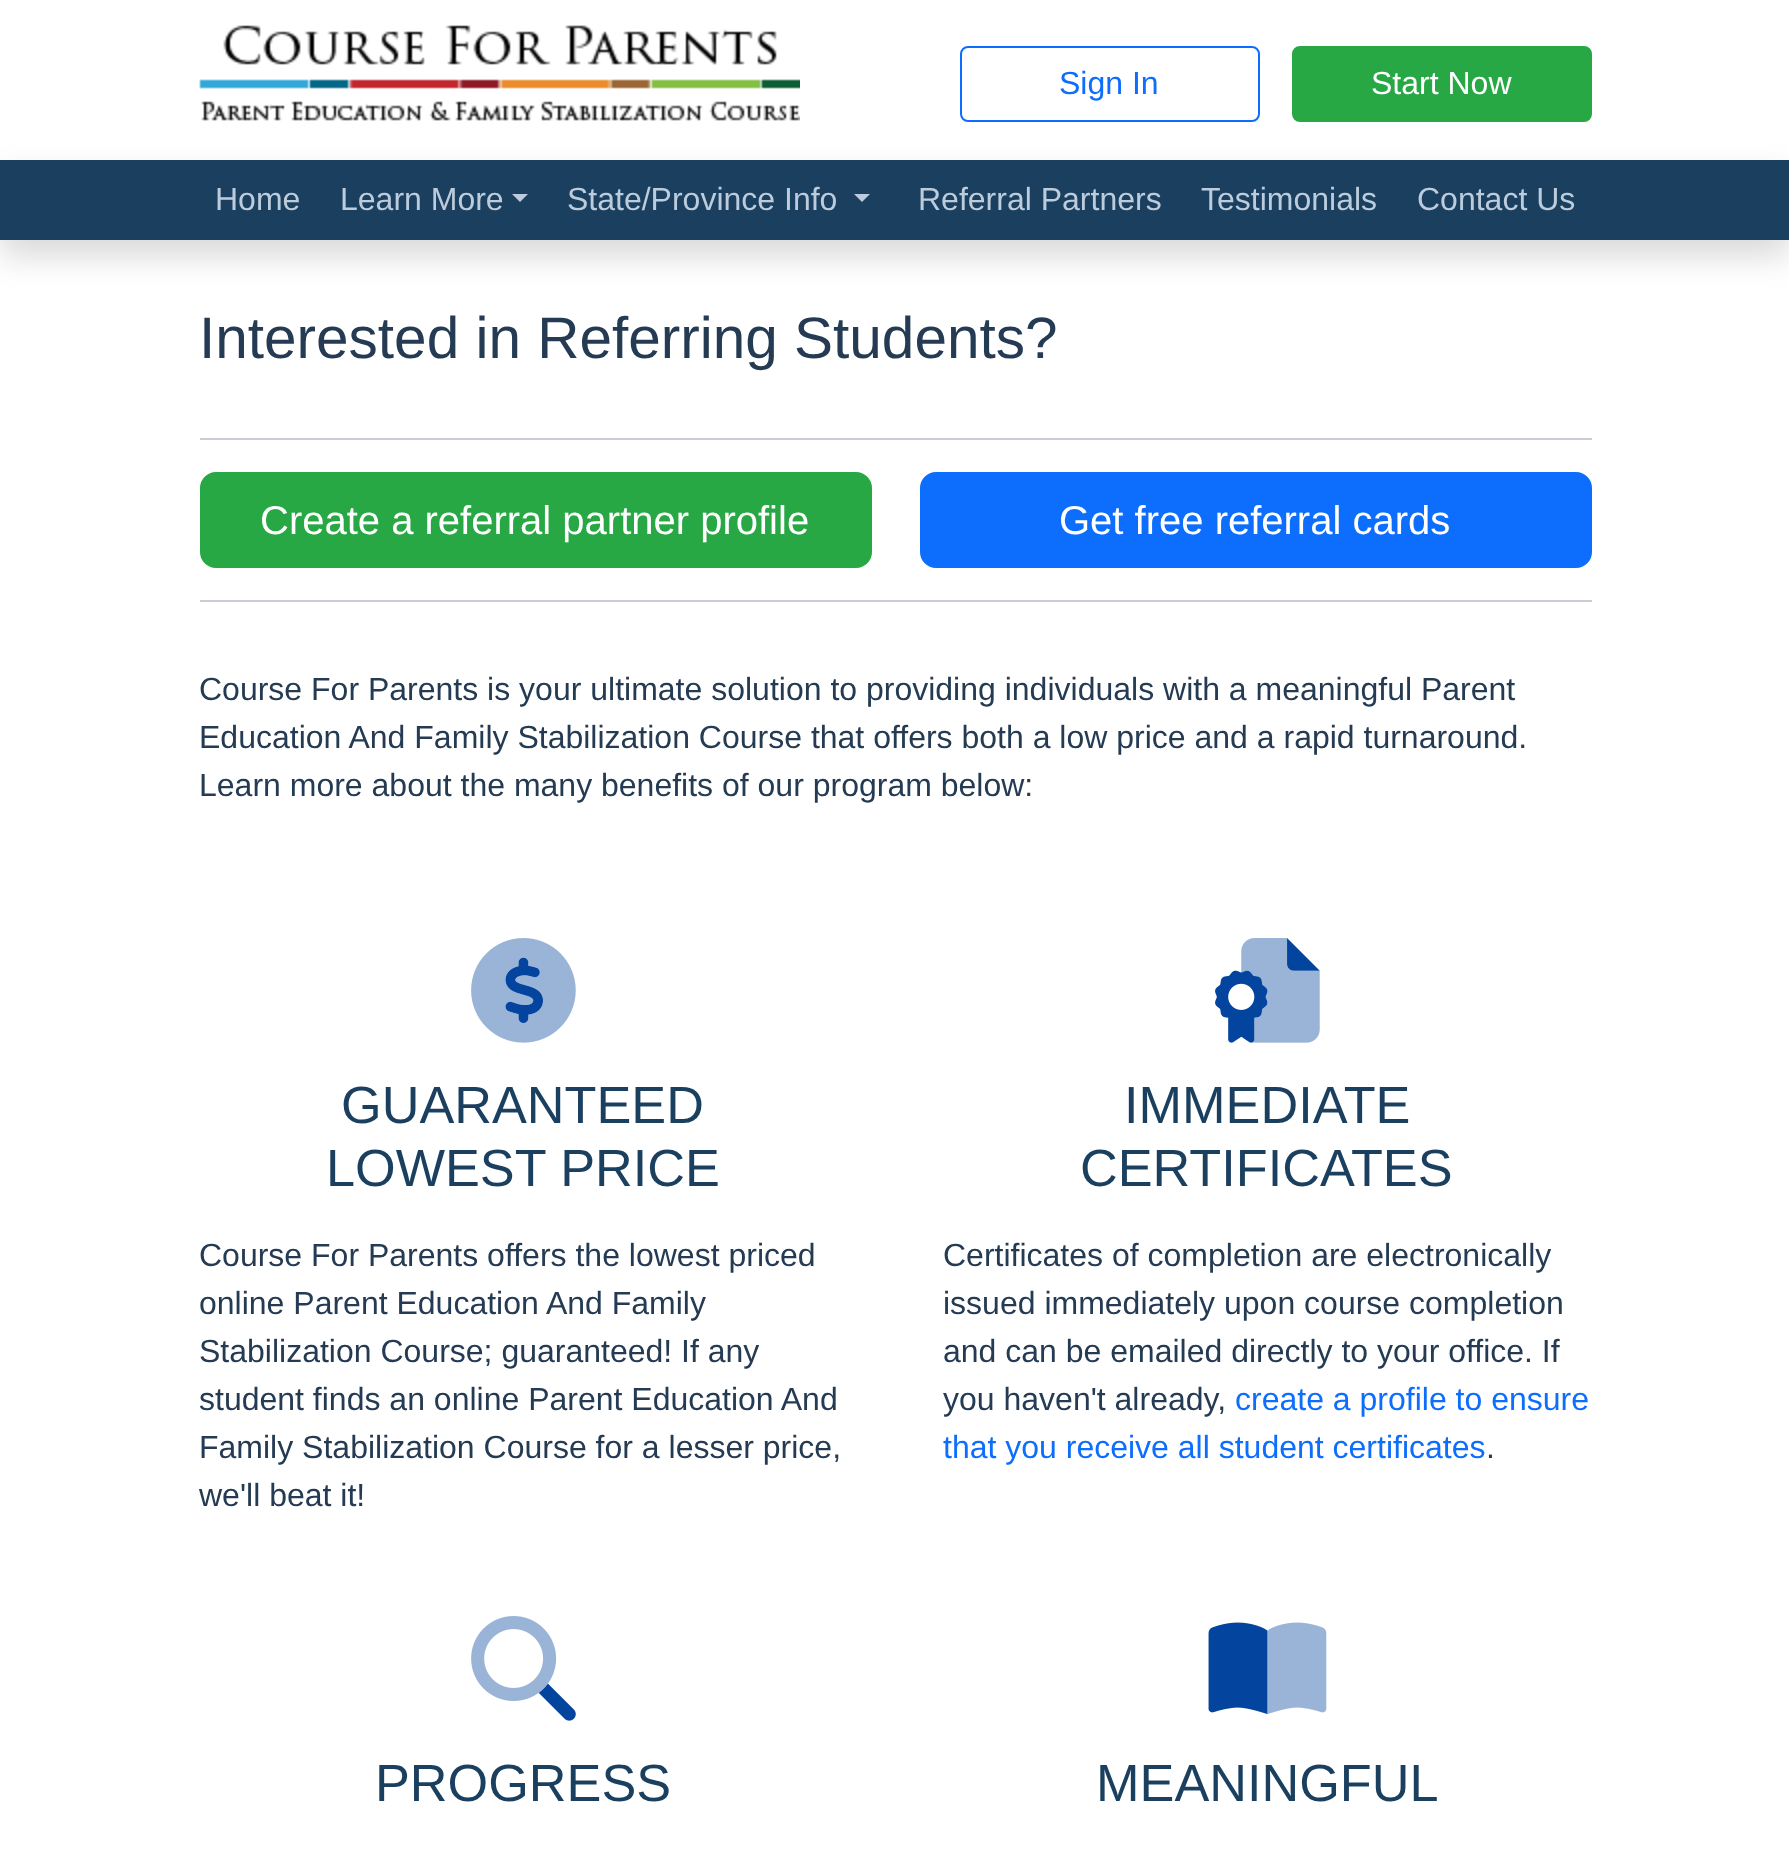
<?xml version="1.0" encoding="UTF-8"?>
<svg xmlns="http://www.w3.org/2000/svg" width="1789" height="1849">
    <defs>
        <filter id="blur1" x="-50%" y="-200%" width="200%" height="500%"><feGaussianBlur stdDeviation="16"/></filter>
    </defs>
    <rect width="100%" height="100%" fill="#FFFFFF"/>
    <image x="199" y="25" width="601" height="96" href="img_01.png"/>
    <rect x="961" y="47" width="298" height="74" rx="7" fill="none" stroke="#0D6EFD" stroke-width="2"/>
    <text x="1059" y="94" font-family="Liberation Sans" font-size="32" fill="#0D6EFD">Sign In</text>
    <rect x="1293" y="47" width="298" height="74" rx="7" fill="#28A745" stroke="#28A745" stroke-width="2"/>
    <text x="1371" y="94" font-family="Liberation Sans" font-size="32" fill="#FFFFFF">Start Now</text>
    <rect x="0" y="176" width="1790" height="80" fill="#000000" fill-opacity="0.15" filter="url(#blur1)"/>
    <rect x="0" y="160" width="1789" height="80" fill="#1A3F5F"/>
    <text x="215" y="210" font-family="Liberation Sans" font-size="32" fill="#BCCCDC">Home</text>
    <text x="340" y="210" font-family="Liberation Sans" font-size="32" fill="#BCCCDC">Learn More</text>
    <path d="M 512 194 H 528 L 520 202 Z" fill="#BCCCDC"/>
    <text x="567" y="210" font-family="Liberation Sans" font-size="32" fill="#BCCCDC">State/Province Info</text>
    <path d="M 854 194 H 870 L 862 202 Z" fill="#BCCCDC"/>
    <text x="918" y="210" font-family="Liberation Sans" font-size="32" fill="#BCCCDC">Referral Partners</text>
    <text x="1201" y="210" font-family="Liberation Sans" font-size="32" fill="#BCCCDC">Testimonials</text>
    <text x="1417" y="210" font-family="Liberation Sans" font-size="32" fill="#BCCCDC">Contact Us</text>
    <text x="199" y="358" font-family="Liberation Sans" font-size="58.5" fill="#243B53">Interested in Referring Students?</text>
    <rect x="200" y="438" width="1392" height="2" fill="#C8CED4"/>
    <rect x="201" y="473" width="670" height="94" rx="15" fill="#28A745" stroke="#28A745" stroke-width="2"/>
    <text x="260" y="534" font-family="Liberation Sans" font-size="40" fill="#FFFFFF">Create a referral partner profile</text>
    <rect x="921" y="473" width="670" height="94" rx="15" fill="#0D6EFD" stroke="#0D6EFD" stroke-width="2"/>
    <text x="1059" y="534" font-family="Liberation Sans" font-size="40" fill="#FFFFFF">Get free referral cards</text>
    <rect x="200" y="600" width="1392" height="2" fill="#C8CED4"/>
    <text font-family="Liberation Sans" font-size="32" fill="#243B53">
        <tspan x="199" y="700">Course For Parents is your ultimate solution to providing individuals with a meaningful Parent</tspan>
        <tspan x="199" y="748">Education And Family Stabilization Course that offers both a low price and a rapid turnaround.</tspan>
        <tspan x="199" y="796">Learn more about the many benefits of our program below:</tspan>
    </text>
    <image x="471" y="938" width="105" height="105" href="img_02.png"/>
    <text x="341" y="1123" font-family="Liberation Sans" font-size="52.25" fill="#1A3F5F">GUARANTEED</text>
    <text x="326" y="1186" font-family="Liberation Sans" font-size="52.25" fill="#1A3F5F">LOWEST PRICE</text>
    <text font-family="Liberation Sans" font-size="32" fill="#243B53">
        <tspan x="199" y="1266">Course For Parents offers the lowest priced</tspan>
        <tspan x="199" y="1314">online Parent Education And Family</tspan>
        <tspan x="199" y="1362">Stabilization Course; guaranteed! If any</tspan>
        <tspan x="199" y="1410">student finds an online Parent Education And</tspan>
        <tspan x="199" y="1458">Family Stabilization Course for a lesser price,</tspan>
        <tspan x="199" y="1506">we'll beat it!</tspan>
    </text>
    <image x="1215" y="938" width="105" height="105" href="img_03.png"/>
    <text x="1124" y="1123" font-family="Liberation Sans" font-size="52.25" fill="#1A3F5F">IMMEDIATE</text>
    <text x="1080" y="1186" font-family="Liberation Sans" font-size="52.25" fill="#1A3F5F">CERTIFICATES</text>
    <text font-family="Liberation Sans" font-size="32" fill="#243B53">
        <tspan x="943" y="1266">Certificates of completion are electronically</tspan>
        <tspan x="943" y="1314">issued immediately upon course completion</tspan>
        <tspan x="943" y="1362">and can be emailed directly to your office. If</tspan>
        <tspan x="943" y="1410">you haven't already,</tspan>
    </text>
    <text x="1235" y="1410" font-family="Liberation Sans" font-size="32" fill="#0D6EFD">create a profile to ensure</text>
    <text x="943" y="1458" font-family="Liberation Sans" font-size="32" fill="#0D6EFD">that you receive all student certificates</text>
    <text x="1486" y="1458" font-family="Liberation Sans" font-size="32" fill="#243B53">.</text>
    <image x="471" y="1616" width="105" height="105" href="img_04.png"/>
    <text x="375" y="1801" font-family="Liberation Sans" font-size="52.25" fill="#1A3F5F">PROGRESS</text>
    <image x="1208" y="1622" width="119" height="93" href="img_05.png"/>
    <text x="1096" y="1801" font-family="Liberation Sans" font-size="52.25" fill="#1A3F5F">MEANINGFUL</text>
</svg>
